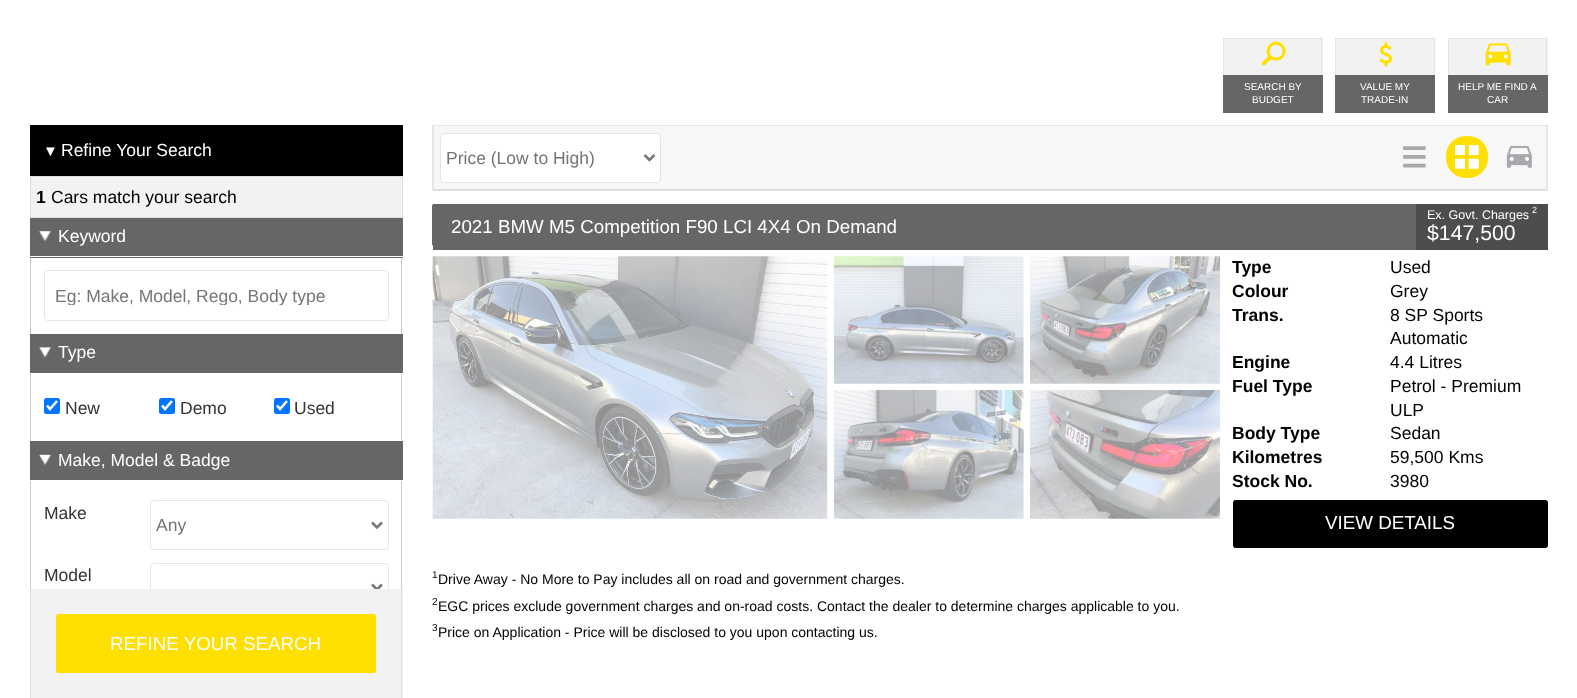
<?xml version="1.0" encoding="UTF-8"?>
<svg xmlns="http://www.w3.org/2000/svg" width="1577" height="698">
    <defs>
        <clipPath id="clip1"><rect x="55" y="285" width="321" height="20"/></clipPath>
    </defs>
    <rect width="100%" height="100%" fill="#FFFFFF"/>
    <rect x="1224" y="39" width="99" height="36" fill="#F2F2F2"/>
    <rect x="1223" y="38" width="100" height="1" fill="#E5E5E5"/>
    <rect x="1321" y="38" width="1" height="37" fill="#E5E5E5"/>
    <rect x="1223" y="38" width="1" height="37" fill="#E5E5E5"/>
    <image x="1261" y="41" width="25" height="25" href="img_01.png"/>
    <rect x="1223" y="75" width="100" height="38" fill="#666666"/>
    <text x="1244" y="90" font-family="Liberation Sans" font-size="10" fill="#FFFFFF">SEARCH BY</text>
    <text x="1252" y="103" font-family="Liberation Sans" font-size="10" fill="#FFFFFF">BUDGET</text>
    <rect x="1336" y="39" width="98" height="36" fill="#F2F2F2"/>
    <rect x="1335" y="38" width="100" height="1" fill="#E5E5E5"/>
    <rect x="1434" y="38" width="1" height="37" fill="#E5E5E5"/>
    <rect x="1335" y="38" width="1" height="37" fill="#E5E5E5"/>
    <image x="1379" y="42" width="14" height="25" href="img_02.png"/>
    <rect x="1335" y="75" width="100" height="38" fill="#666666"/>
    <text x="1360" y="90" font-family="Liberation Sans" font-size="10" fill="#FFFFFF">VALUE MY</text>
    <text x="1361" y="103" font-family="Liberation Sans" font-size="10" fill="#FFFFFF">TRADE-IN</text>
    <rect x="1449" y="39" width="99" height="36" fill="#F2F2F2"/>
    <rect x="1448" y="38" width="100" height="1" fill="#E5E5E5"/>
    <rect x="1546" y="38" width="1" height="37" fill="#E5E5E5"/>
    <rect x="1448" y="38" width="1" height="37" fill="#E5E5E5"/>
    <image x="1485" y="43" width="26" height="23" href="img_03.png"/>
    <rect x="1448" y="75" width="100" height="38" fill="#666666"/>
    <text x="1458" y="90" font-family="Liberation Sans" font-size="10" fill="#FFFFFF">HELP ME FIND A</text>
    <text x="1487" y="103" font-family="Liberation Sans" font-size="10" fill="#FFFFFF">CAR</text>
    <rect x="30" y="125" width="373" height="51" fill="#000000"/>
    <text x="43" y="156" font-family="Liberation Sans" font-size="15" fill="#FFFFFF">▼</text>
    <text x="61" y="156" font-family="Liberation Sans" font-size="17.5" fill="#FFFFFF">Refine Your Search</text>
    <rect x="30.5" y="176.5" width="372" height="41" fill="#F2F2F2" stroke="#DCDDDE"/>
    <text x="36" y="203" font-family="Liberation Sans" font-size="17.5" font-weight="700" fill="#000000">1</text>
    <text x="51" y="203" font-family="Liberation Sans" font-size="17.5" fill="#000000">Cars match your search</text>
    <rect x="30" y="218" width="373" height="40" fill="#666666"/>
    <rect x="30" y="256" width="373" height="1" fill="#FFFFFF"/>
    <image x="38" y="231" width="14" height="10" href="img_04.png"/>
    <text x="58" y="242" font-family="Liberation Sans" font-size="17.5" fill="#FFFFFF">Keyword</text>
    <rect x="401" y="258" width="1" height="76" fill="#CCCCCC"/>
    <rect x="30" y="258" width="1" height="76" fill="#CCCCCC"/>
    <rect x="44.5" y="270.5" width="344" height="50" rx="3.5" fill="none" stroke="#E5E5E5"/>
    <g clip-path="url(#clip1)">
        <text x="55" y="302" font-family="Liberation Sans" font-size="17.5" fill="#757575">Eg: Make, Model, Rego, Body type</text>
    </g>
    <rect x="30" y="334" width="373" height="39" fill="#666666"/>
    <image x="38" y="347" width="14" height="11" href="img_05.png"/>
    <text x="58" y="358" font-family="Liberation Sans" font-size="17.5" fill="#FFFFFF">Type</text>
    <rect x="401" y="374" width="1" height="67" fill="#CCCCCC"/>
    <rect x="30" y="374" width="1" height="67" fill="#CCCCCC"/>
    <rect x="44" y="398" width="16" height="16" rx="2.5" fill="#0075FF"/>
    <path d="M 47 405.5 L 50 409 L 57 401" fill="none" stroke="#FFFFFF" stroke-width="2.6"/>
    <text x="65" y="414" font-family="Liberation Sans" font-size="17.5" fill="#333333">New</text>
    <rect x="159" y="398" width="16" height="16" rx="2.5" fill="#0075FF"/>
    <path d="M 162 405.5 L 165 409 L 172 401" fill="none" stroke="#FFFFFF" stroke-width="2.6"/>
    <text x="180" y="414" font-family="Liberation Sans" font-size="17.5" fill="#333333">Demo</text>
    <rect x="274" y="398" width="16" height="16" rx="2.5" fill="#0075FF"/>
    <path d="M 277 405.5 L 280 409 L 287 401" fill="none" stroke="#FFFFFF" stroke-width="2.6"/>
    <text x="294" y="414" font-family="Liberation Sans" font-size="17.5" fill="#333333">Used</text>
    <rect x="30" y="441" width="373" height="39" fill="#666666"/>
    <image x="38" y="454" width="14" height="11" href="img_06.png"/>
    <text x="58" y="466" font-family="Liberation Sans" font-size="17.5" fill="#FFFFFF">Make, Model &amp; Badge</text>
    <rect x="401" y="481" width="1" height="108" fill="#CCCCCC"/>
    <rect x="30" y="481" width="1" height="108" fill="#CCCCCC"/>
    <text x="44" y="519" font-family="Liberation Sans" font-size="17.5" fill="#333333">Make</text>
    <rect x="150.5" y="500.5" width="238" height="49" rx="3.5" fill="none" stroke="#E5E5E5"/>
    <path d="M 372 522.5 L 377 527.5 L 382 522.5" fill="none" stroke="#777777" stroke-width="2.5"/>
    <text x="156" y="531" font-family="Liberation Sans" font-size="17.5" fill="#757575">Any</text>
    <text x="44" y="581" font-family="Liberation Sans" font-size="17.5" fill="#333333">Model</text>
    <rect x="150.5" y="563.5" width="238" height="49" rx="3.5" fill="none" stroke="#E5E5E5"/>
    <path d="M 372 584.5 L 377 589.5 L 382 584.5" fill="none" stroke="#777777" stroke-width="2.5"/>
    <rect x="31" y="589" width="372" height="109" fill="#F2F2F2"/>
    <rect x="401" y="589" width="1" height="109" fill="#DCDDDE"/>
    <rect x="30" y="589" width="1" height="109" fill="#DCDDDE"/>
    <rect x="56" y="614" width="320" height="59" rx="2.5" fill="#FFDF00"/>
    <text x="110" y="650" font-family="Liberation Sans" font-size="18.75" fill="#FFFFFF">REFINE YOUR SEARCH</text>
    <rect x="434" y="126" width="1112" height="63" fill="#F7F7F7"/>
    <rect x="433" y="125" width="1115" height="1" fill="#E5E5E5"/>
    <path d="M 1548 125 V 191 L 1546 189 V 126 Z" fill="#E5E5E5"/>
    <path d="M 1548 191 H 432 L 434 189 H 1546 Z" fill="#DCDDDE"/>
    <path d="M 432 191 V 125 L 434 126 V 189 Z" fill="#E5E5E5"/>
    <rect x="440.5" y="133.5" width="220" height="49" rx="3.5" fill="#FFFFFF" stroke="#E5E5E5"/>
    <path d="M 644.5 155 L 649.5 160 L 654.5 155" fill="none" stroke="#777777" stroke-width="2.5"/>
    <text x="446" y="164" font-family="Liberation Sans" font-size="17.5" fill="#757575">Price (Low to High)</text>
    <image x="1403" y="146" width="23" height="22" href="img_07.png"/>
    <rect x="1446" y="136" width="42" height="42" rx="20" fill="#FFDF00"/>
    <image x="1455" y="145" width="24" height="24" href="img_08.png"/>
    <image x="1506" y="145" width="26" height="23" href="img_09.png"/>
    <path d="M 432 246 V 204 L 444 225 Z" fill="#666666"/>
    <rect x="433" y="204" width="983" height="46" fill="#666666"/>
    <text x="451" y="233" font-family="Liberation Sans" font-size="18.75" fill="#FFFFFF">2021 BMW M5 Competition F90 LCI 4X4 On Demand</text>
    <rect x="1416" y="204" width="132" height="46" fill="#4D4D4D"/>
    <text x="1427" y="219" font-family="Liberation Sans" font-size="12.5" fill="#FFFFFF">Ex. Govt. Charges</text>
    <text x="1532" y="213" font-family="Liberation Sans" font-size="9" fill="#FFFFFF">2</text>
    <text x="1427" y="240" font-family="Liberation Sans" font-size="21.25" fill="#FFFFFF">$147,500</text>
    <image x="432" y="256" width="396" height="263" href="img_10.png"/>
    <image x="833" y="256" width="191" height="128" href="img_11.png"/>
    <image x="1030" y="256" width="190" height="128" href="img_12.png"/>
    <image x="833" y="390" width="191" height="129" href="img_13.png"/>
    <image x="1030" y="390" width="190" height="129" href="img_14.png"/>
    <text x="1232" y="273" font-family="Liberation Sans" font-size="17.5" font-weight="700" fill="#000000">Type</text>
    <text x="1390" y="273" font-family="Liberation Sans" font-size="17.5" fill="#000000">Used</text>
    <text x="1232" y="297" font-family="Liberation Sans" font-size="17.5" font-weight="700" fill="#000000">Colour</text>
    <text x="1390" y="297" font-family="Liberation Sans" font-size="17.5" fill="#000000">Grey</text>
    <text x="1232" y="321" font-family="Liberation Sans" font-size="17.5" font-weight="700" fill="#000000">Trans.</text>
    <text font-family="Liberation Sans" font-size="17.5" fill="#000000">
        <tspan x="1390" y="321">8 SP Sports</tspan>
        <tspan x="1390" y="344">Automatic</tspan>
    </text>
    <text x="1232" y="368" font-family="Liberation Sans" font-size="17.5" font-weight="700" fill="#000000">Engine</text>
    <text x="1390" y="368" font-family="Liberation Sans" font-size="17.5" fill="#000000">4.4 Litres</text>
    <text x="1232" y="392" font-family="Liberation Sans" font-size="17.5" font-weight="700" fill="#000000">Fuel Type</text>
    <text font-family="Liberation Sans" font-size="17.5" fill="#000000">
        <tspan x="1390" y="392">Petrol - Premium</tspan>
        <tspan x="1390" y="416">ULP</tspan>
    </text>
    <text x="1232" y="439" font-family="Liberation Sans" font-size="17.5" font-weight="700" fill="#000000">Body Type</text>
    <text x="1390" y="439" font-family="Liberation Sans" font-size="17.5" fill="#000000">Sedan</text>
    <text x="1232" y="463" font-family="Liberation Sans" font-size="17.5" font-weight="700" fill="#000000">Kilometres</text>
    <text x="1390" y="463" font-family="Liberation Sans" font-size="17.5" fill="#000000">59,500 Kms</text>
    <text x="1232" y="487" font-family="Liberation Sans" font-size="17.5" font-weight="700" fill="#000000">Stock No.</text>
    <text x="1390" y="487" font-family="Liberation Sans" font-size="17.5" fill="#000000">3980</text>
    <rect x="1233.5" y="500.5" width="314" height="47" rx="2" fill="#000000" stroke="#000000"/>
    <text x="1325" y="529" font-family="Liberation Sans" font-size="18.75" fill="#FFFFFF">VIEW DETAILS</text>
    <text x="432" y="578" font-family="Liberation Sans" font-size="10" fill="#000000">1</text>
    <text x="438" y="584" font-family="Liberation Sans" font-size="14" fill="#000000">Drive Away - No More to Pay includes all on road and government charges.</text>
    <text x="432" y="605" font-family="Liberation Sans" font-size="10" fill="#000000">2</text>
    <text x="438" y="611" font-family="Liberation Sans" font-size="14" fill="#000000">EGC prices exclude government charges and on-road costs. Contact the dealer to determine charges applicable to you.</text>
    <text x="432" y="631" font-family="Liberation Sans" font-size="10" fill="#000000">3</text>
    <text x="438" y="637" font-family="Liberation Sans" font-size="14" fill="#000000">Price on Application - Price will be disclosed to you upon contacting us.</text>
</svg>
